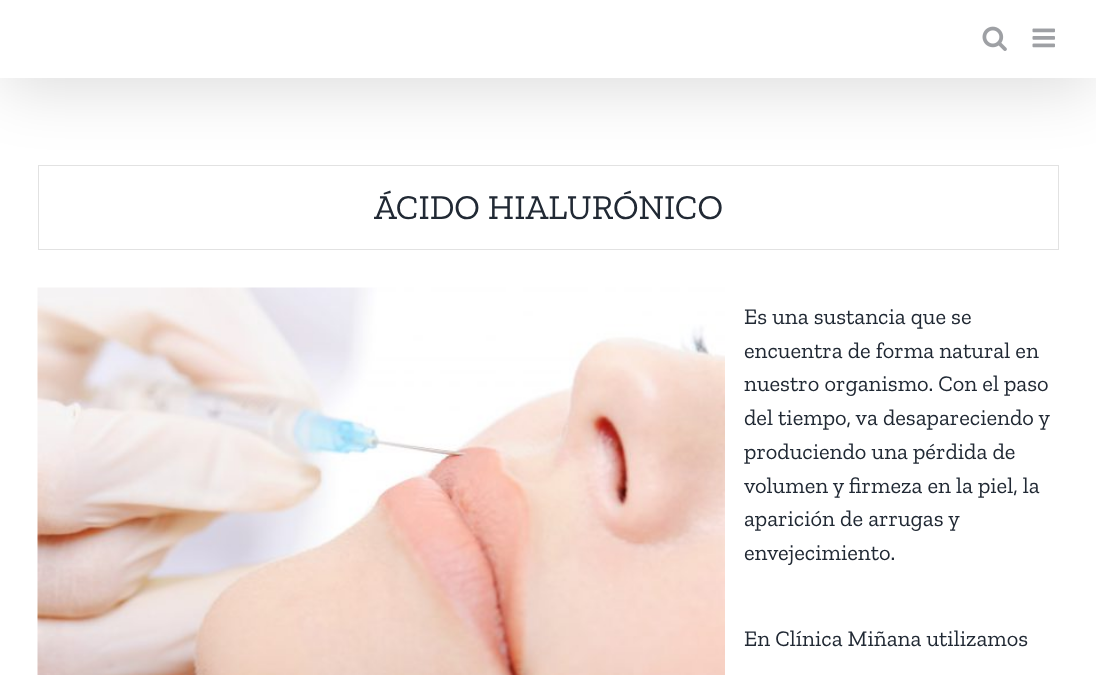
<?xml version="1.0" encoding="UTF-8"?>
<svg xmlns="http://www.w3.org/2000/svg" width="1096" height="675">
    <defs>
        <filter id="blur1" x="-50%" y="-200%" width="200%" height="500%"><feGaussianBlur stdDeviation="31"/></filter>
    </defs>
    <rect width="100%" height="100%" fill="#FFFFFF"/>
    <rect x="38.5" y="165.5" width="1020" height="84" fill="none" stroke="#E2E2E2"/>
    <rect x="3" y="15" width="1091" height="73" fill="#000000" fill-opacity="0.14" filter="url(#blur1)"/>
    <rect x="0" y="0" width="1096" height="78" fill="#FFFFFF"/>
    <image x="982" y="26" width="25" height="25" href="img_01.png"/>
    <image x="1032" y="28" width="23" height="20" href="img_02.png"/>
    <text x="374" y="219" font-family="Zilla Slab" font-size="35" fill="#212934">ÁCIDO HIALURÓNICO</text>
    <image x="37" y="287" width="688" height="388" href="img_03.png"/>
    <text font-family="Zilla Slab" font-size="22.5" fill="#212934">
        <tspan x="744" y="324">Es una sustancia que se</tspan>
        <tspan x="744" y="358">encuentra de forma natural en</tspan>
        <tspan x="744" y="391">nuestro organismo. Con el paso</tspan>
        <tspan x="744" y="425">del tiempo, va desapareciendo y</tspan>
        <tspan x="744" y="459">produciendo una pérdida de</tspan>
        <tspan x="744" y="493">volumen y firmeza en la piel, la</tspan>
        <tspan x="744" y="526">aparición de arrugas y</tspan>
        <tspan x="744" y="560">envejecimiento.</tspan>
    </text>
    <text x="744" y="646" font-family="Zilla Slab" font-size="22.5" fill="#212934">En Clínica Miñana utilizamos</text>
</svg>
